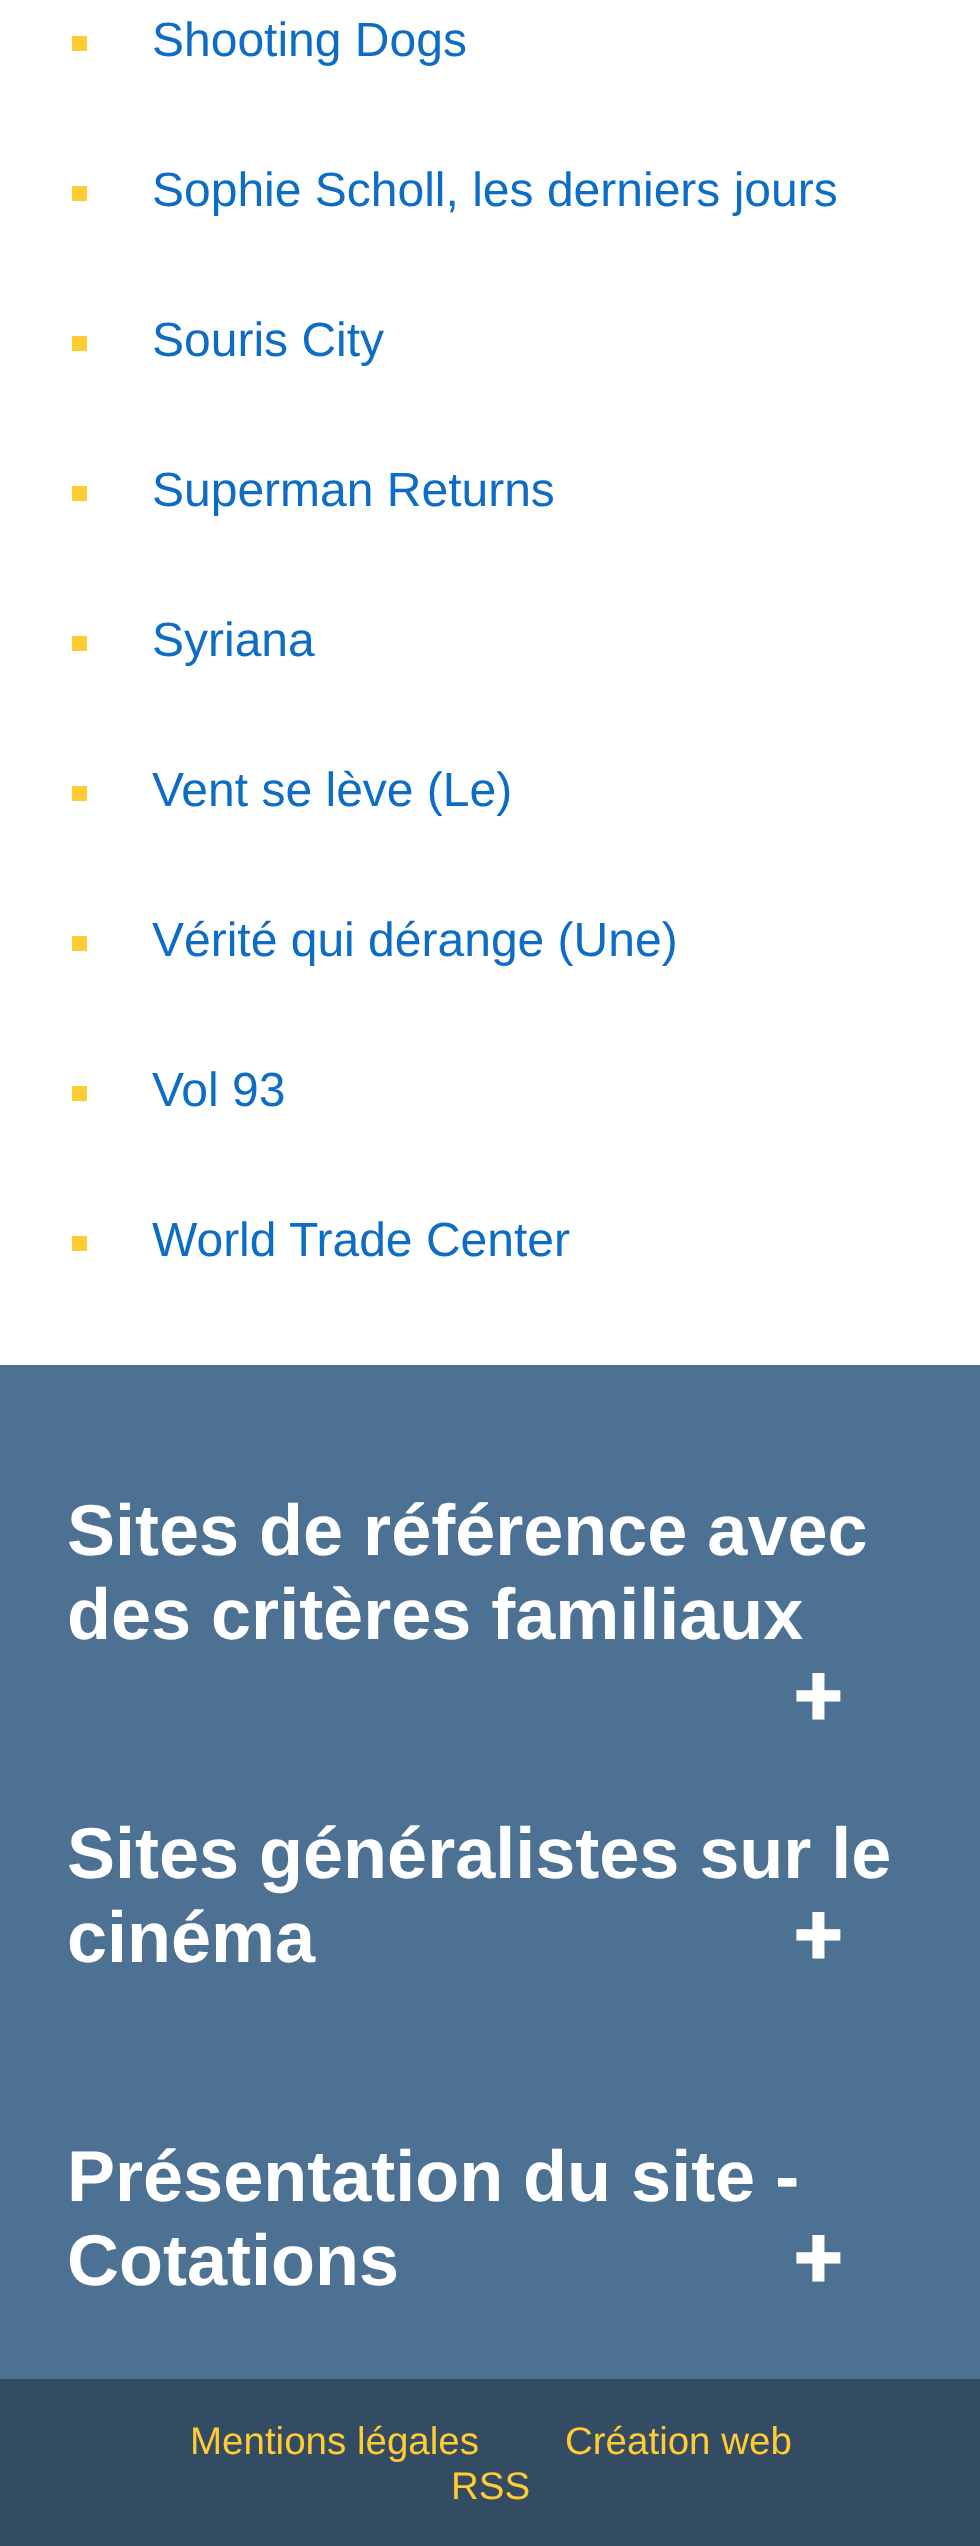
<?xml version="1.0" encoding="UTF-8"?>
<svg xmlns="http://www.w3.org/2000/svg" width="980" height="2546">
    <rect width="100%" height="100%" fill="#FFFFFF"/>
    <rect x="72" y="36" width="15" height="15" fill="#FFCC33"/>
    <text x="152" y="56" font-family="Liberation Sans" font-size="48" fill="#0C6CC6">Shooting Dogs</text>
    <rect x="72" y="186" width="15" height="15" fill="#FFCC33"/>
    <text x="152" y="206" font-family="Liberation Sans" font-size="48" fill="#0C6CC6">Sophie Scholl, les derniers jours</text>
    <rect x="72" y="336" width="15" height="15" fill="#FFCC33"/>
    <text x="152" y="356" font-family="Liberation Sans" font-size="48" fill="#0C6CC6">Souris City</text>
    <rect x="72" y="486" width="15" height="15" fill="#FFCC33"/>
    <text x="152" y="506" font-family="Liberation Sans" font-size="48" fill="#0C6CC6">Superman Returns</text>
    <rect x="72" y="636" width="15" height="15" fill="#FFCC33"/>
    <text x="152" y="656" font-family="Liberation Sans" font-size="48" fill="#0C6CC6">Syriana</text>
    <rect x="72" y="786" width="15" height="15" fill="#FFCC33"/>
    <text x="152" y="806" font-family="Liberation Sans" font-size="48" fill="#0C6CC6">Vent se lève (Le)</text>
    <rect x="72" y="936" width="15" height="15" fill="#FFCC33"/>
    <text x="152" y="956" font-family="Liberation Sans" font-size="48" fill="#0C6CC6">Vérité qui dérange (Une)</text>
    <rect x="72" y="1086" width="15" height="15" fill="#FFCC33"/>
    <text x="152" y="1106" font-family="Liberation Sans" font-size="48" fill="#0C6CC6">Vol 93</text>
    <rect x="72" y="1236" width="15" height="15" fill="#FFCC33"/>
    <text x="152" y="1256" font-family="Liberation Sans" font-size="48" fill="#0C6CC6">World Trade Center</text>
    <rect x="0" y="1365" width="980" height="1014" fill="#4D7193"/>
    <text font-family="Liberation Sans" font-size="72" font-weight="700" fill="#FFFFFF">
        <tspan x="67" y="1555">Sites de référence avec</tspan>
        <tspan x="67" y="1639">des critères familiaux</tspan>
    </text>
    <text x="794" y="1726" font-family="Roboto" font-size="90" font-weight="700" fill="#FFFFFF">+</text>
    <text font-family="Liberation Sans" font-size="72" font-weight="700" fill="#FFFFFF">
        <tspan x="67" y="1878">Sites généralistes sur le</tspan>
        <tspan x="67" y="1962">cinéma</tspan>
    </text>
    <text x="794" y="1965" font-family="Roboto" font-size="90" font-weight="700" fill="#FFFFFF">+</text>
    <text font-family="Liberation Sans" font-size="72" font-weight="700" fill="#FFFFFF">
        <tspan x="67" y="2201">Présentation du site -</tspan>
        <tspan x="67" y="2285">Cotations</tspan>
    </text>
    <text x="794" y="2288" font-family="Roboto" font-size="90" font-weight="700" fill="#FFFFFF">+</text>
    <rect x="0" y="2379" width="980" height="167" fill="#334C64"/>
    <text x="190" y="2454" font-family="Liberation Sans" font-size="38.5" fill="#FFCC33">Mentions légales</text>
    <text x="565" y="2454" font-family="Liberation Sans" font-size="38.5" fill="#FFCC33">Création web</text>
    <text x="451" y="2499" font-family="Liberation Sans" font-size="38.5" fill="#FFCC33">RSS</text>
</svg>
